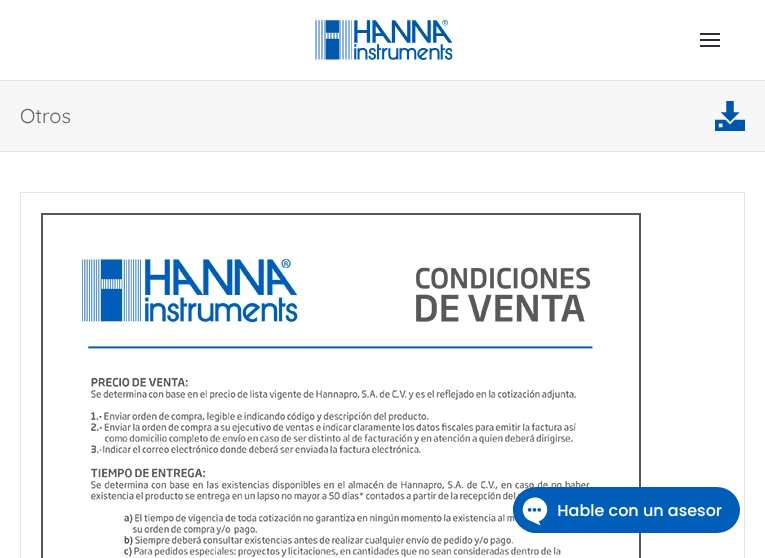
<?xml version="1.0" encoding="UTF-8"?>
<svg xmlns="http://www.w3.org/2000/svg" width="765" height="558">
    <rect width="100%" height="100%" fill="#FFFFFF"/>
    <rect x="0" y="80" width="765" height="1" fill="#E4E4E4"/>
    <image x="315" y="20" width="138" height="40" href="img_01.png"/>
    <rect x="700" y="33" width="20" height="2" fill="#2D2E33"/>
    <rect x="700" y="39" width="20" height="2" fill="#2D2E33"/>
    <rect x="700" y="45" width="20" height="2" fill="#2D2E33"/>
    <rect x="0" y="81" width="765" height="70" fill="#F7F7F7"/>
    <rect x="0" y="151" width="765" height="1" fill="#E4E4E4"/>
    <text x="20" y="123" font-family="Quicksand" font-size="20" font-weight="300" fill="#636363">Otros</text>
    <image x="715" y="101" width="30" height="30" href="img_02.png"/>
    <rect x="20.5" y="192.5" width="724" height="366" fill="none" stroke="#E5E5E7"/>
    <image x="41" y="213" width="600" height="345" href="img_03.png"/>
    <image x="513" y="487" width="227" height="46" href="img_04.png"/>
</svg>
